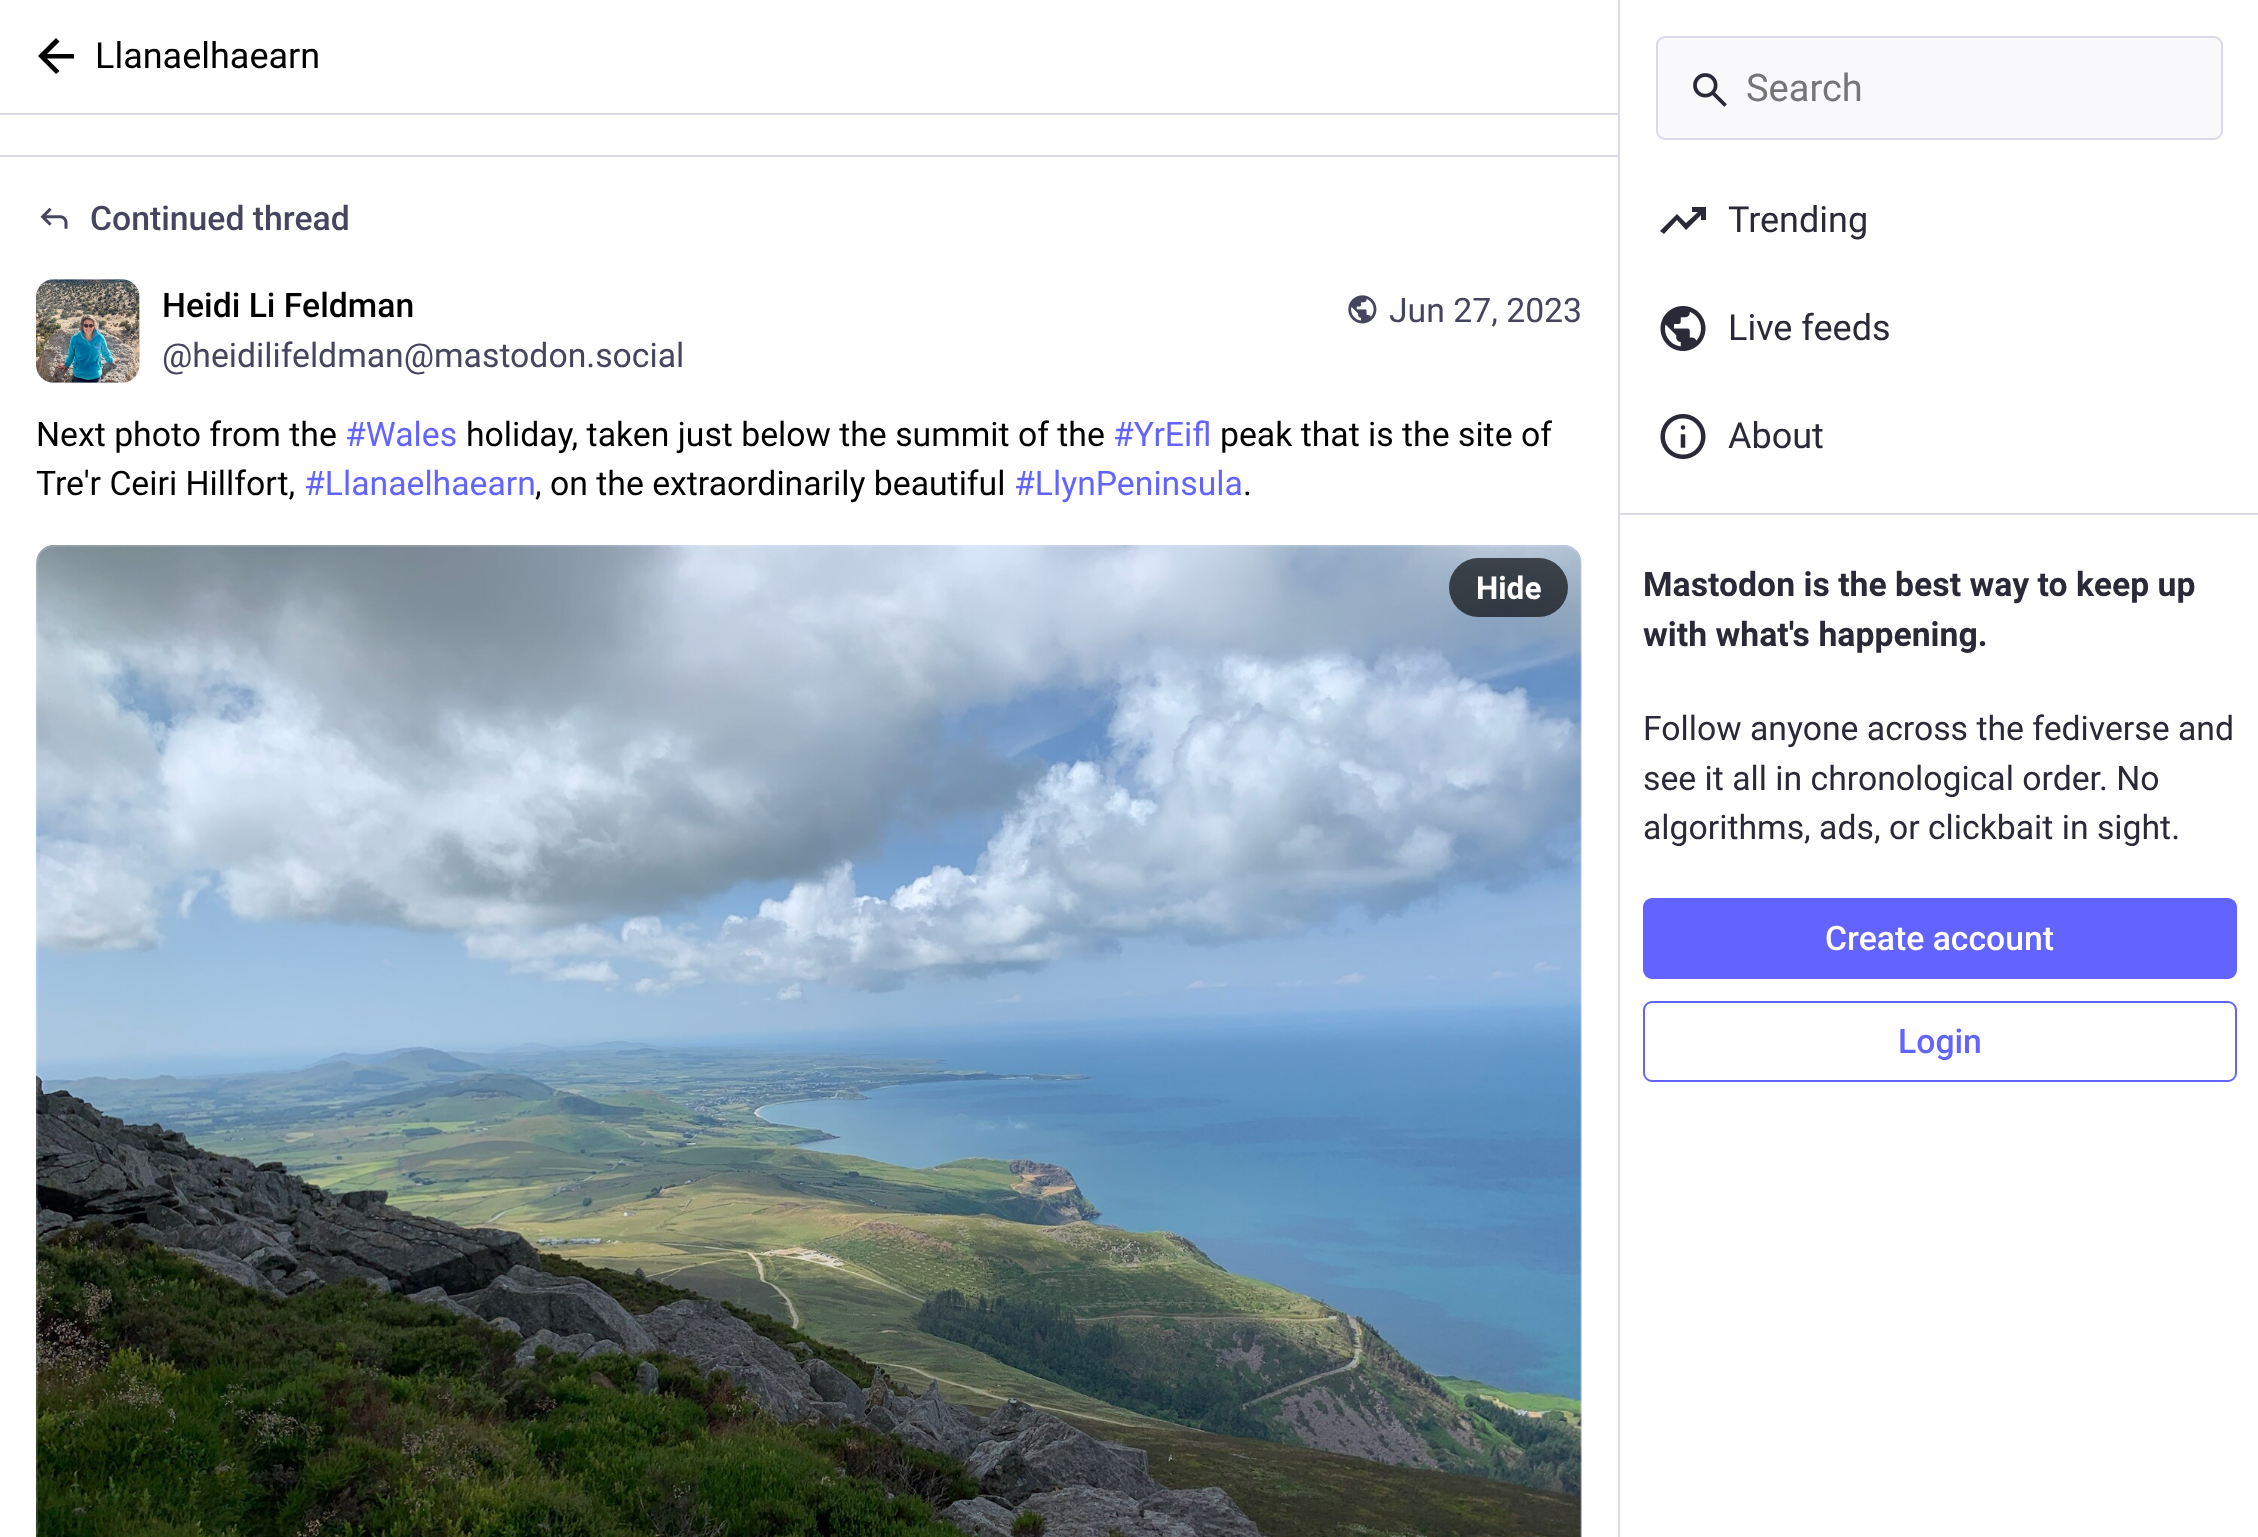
<?xml version="1.0" encoding="UTF-8"?>
<svg xmlns="http://www.w3.org/2000/svg" width="2258" height="1537">
    <rect width="100%" height="100%" fill="#FFFFFF"/>
    <rect x="0" y="113" width="1618" height="2" fill="#D9D9E8"/>
    <path d="M 47 58.5 L 59.5 71 L 56 74 L 38 56 L 56 38 L 59.5 41.5 L 47 54 H 74 V 58.5 Z" fill="#000000"/>
    <text x="95" y="68" font-family="Roboto" font-size="36" fill="#000000">Llanaelhaearn</text>
    <rect x="0" y="155" width="1618" height="2" fill="#D9D9E8"/>
    <image x="40" y="207" width="28" height="22" href="img_01.png"/>
    <text x="90" y="230" font-family="Roboto" font-size="33.75" font-weight="500" fill="#45455F">Continued thread</text>
    <rect x="36" y="279" width="104" height="104" rx="18" fill="#E8E6F0"/>
    <image x="36" y="279" width="104" height="104" href="img_02.png"/>
    <text x="162" y="317" font-family="Roboto" font-size="33.75" font-weight="500" fill="#000000">Heidi Li Feldman</text>
    <text x="162" y="367" font-family="Roboto" font-size="33.75" fill="#45455F">@heidilifeldman@mastodon.social</text>
    <image x="1348" y="295" width="29" height="29" href="img_03.png"/>
    <text x="1389" y="322" font-family="Roboto" font-size="33.75" fill="#45455F">Jun 27, 2023</text>
    <text x="36" y="446" font-family="Roboto" font-size="33.75" fill="#000000">Next photo from the</text>
    <text x="345" y="446" font-family="Roboto" font-size="33.75" fill="#6364FF">#Wales</text>
    <text x="466" y="446" font-family="Roboto" font-size="33.75" fill="#000000">holiday, taken just below the summit of the</text>
    <text x="1113" y="446" font-family="Roboto" font-size="33.75" fill="#6364FF">#YrEifl</text>
    <text x="1220" y="446" font-family="Roboto" font-size="33.75" fill="#000000">peak that is the site of</text>
    <text x="36" y="495" font-family="Roboto" font-size="33.75" fill="#000000">Tre'r Ceiri Hillfort,</text>
    <text x="304" y="495" font-family="Roboto" font-size="33.75" fill="#6364FF">#Llanaelhaearn</text>
    <text x="535" y="495" font-family="Roboto" font-size="33.75" fill="#000000">, on the extraordinarily beautiful</text>
    <text x="1014" y="495" font-family="Roboto" font-size="33.75" fill="#6364FF">#LlynPeninsula</text>
    <text x="1243" y="495" font-family="Roboto" font-size="33.75" fill="#000000">.</text>
    <image x="36" y="545" width="1546" height="992" href="img_04.png"/>
    <rect x="37" y="546" width="1544" height="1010" rx="17" fill="none" stroke="#FCF8FF" stroke-opacity="0.15" stroke-width="2"/>
    <rect x="1449" y="558" width="119" height="59" rx="29.5" fill="#000000" fill-opacity="0.65"/>
    <text x="1476" y="599" font-family="Roboto" font-size="31.5" font-weight="700" fill="#FFFFFF">Hide</text>
    <rect x="1618" y="0" width="2" height="1537" fill="#D9D9E8"/>
    <rect x="1657" y="37" width="565" height="102" rx="8" fill="#F9F9FB" stroke="#D9D9E8" stroke-width="2"/>
    <image x="1693" y="73" width="34" height="34" href="img_05.png"/>
    <text x="1746" y="101" font-family="Roboto" font-size="38" fill="#757575">Search</text>
    <path d="M 1664 234 L 1660 231 L 1677 214 L 1686 223 L 1698 212 H 1692 V 207 H 1706 V 220 H 1701 V 215 L 1686 230 L 1677 220 Z" fill="#292938"/>
    <text x="1728" y="232" font-family="Roboto" font-size="36" fill="#292938">Trending</text>
    <image x="1660" y="306" width="46" height="45" href="img_06.png"/>
    <text x="1728" y="340" font-family="Roboto" font-size="36" fill="#292938">Live feeds</text>
    <image x="1660" y="414" width="46" height="45" href="img_07.png"/>
    <text x="1728" y="448" font-family="Roboto" font-size="36" fill="#292938">About</text>
    <rect x="1620" y="513" width="638" height="2" fill="#D9D9E8"/>
    <text font-family="Roboto" font-size="33.75" font-weight="700" fill="#292938">
        <tspan x="1643" y="596">Mastodon is the best way to keep up</tspan>
        <tspan x="1643" y="646">with what's happening.</tspan>
    </text>
    <text font-family="Roboto" font-size="33.75" fill="#292938">
        <tspan x="1643" y="740">Follow anyone across the fediverse and</tspan>
        <tspan x="1643" y="790">see it all in chronological order. No</tspan>
        <tspan x="1643" y="839">algorithms, ads, or clickbait in sight.</tspan>
    </text>
    <rect x="1643" y="898" width="594" height="81" rx="9" fill="#6364FF"/>
    <text x="1825" y="950" font-family="Roboto" font-size="33.75" font-weight="500" fill="#FFFFFF">Create account</text>
    <rect x="1644" y="1002" width="592" height="79" rx="8" fill="none" stroke="#6364FF" stroke-width="2"/>
    <text x="1898" y="1053" font-family="Roboto" font-size="33.75" font-weight="500" fill="#6364FF">Login</text>
</svg>
